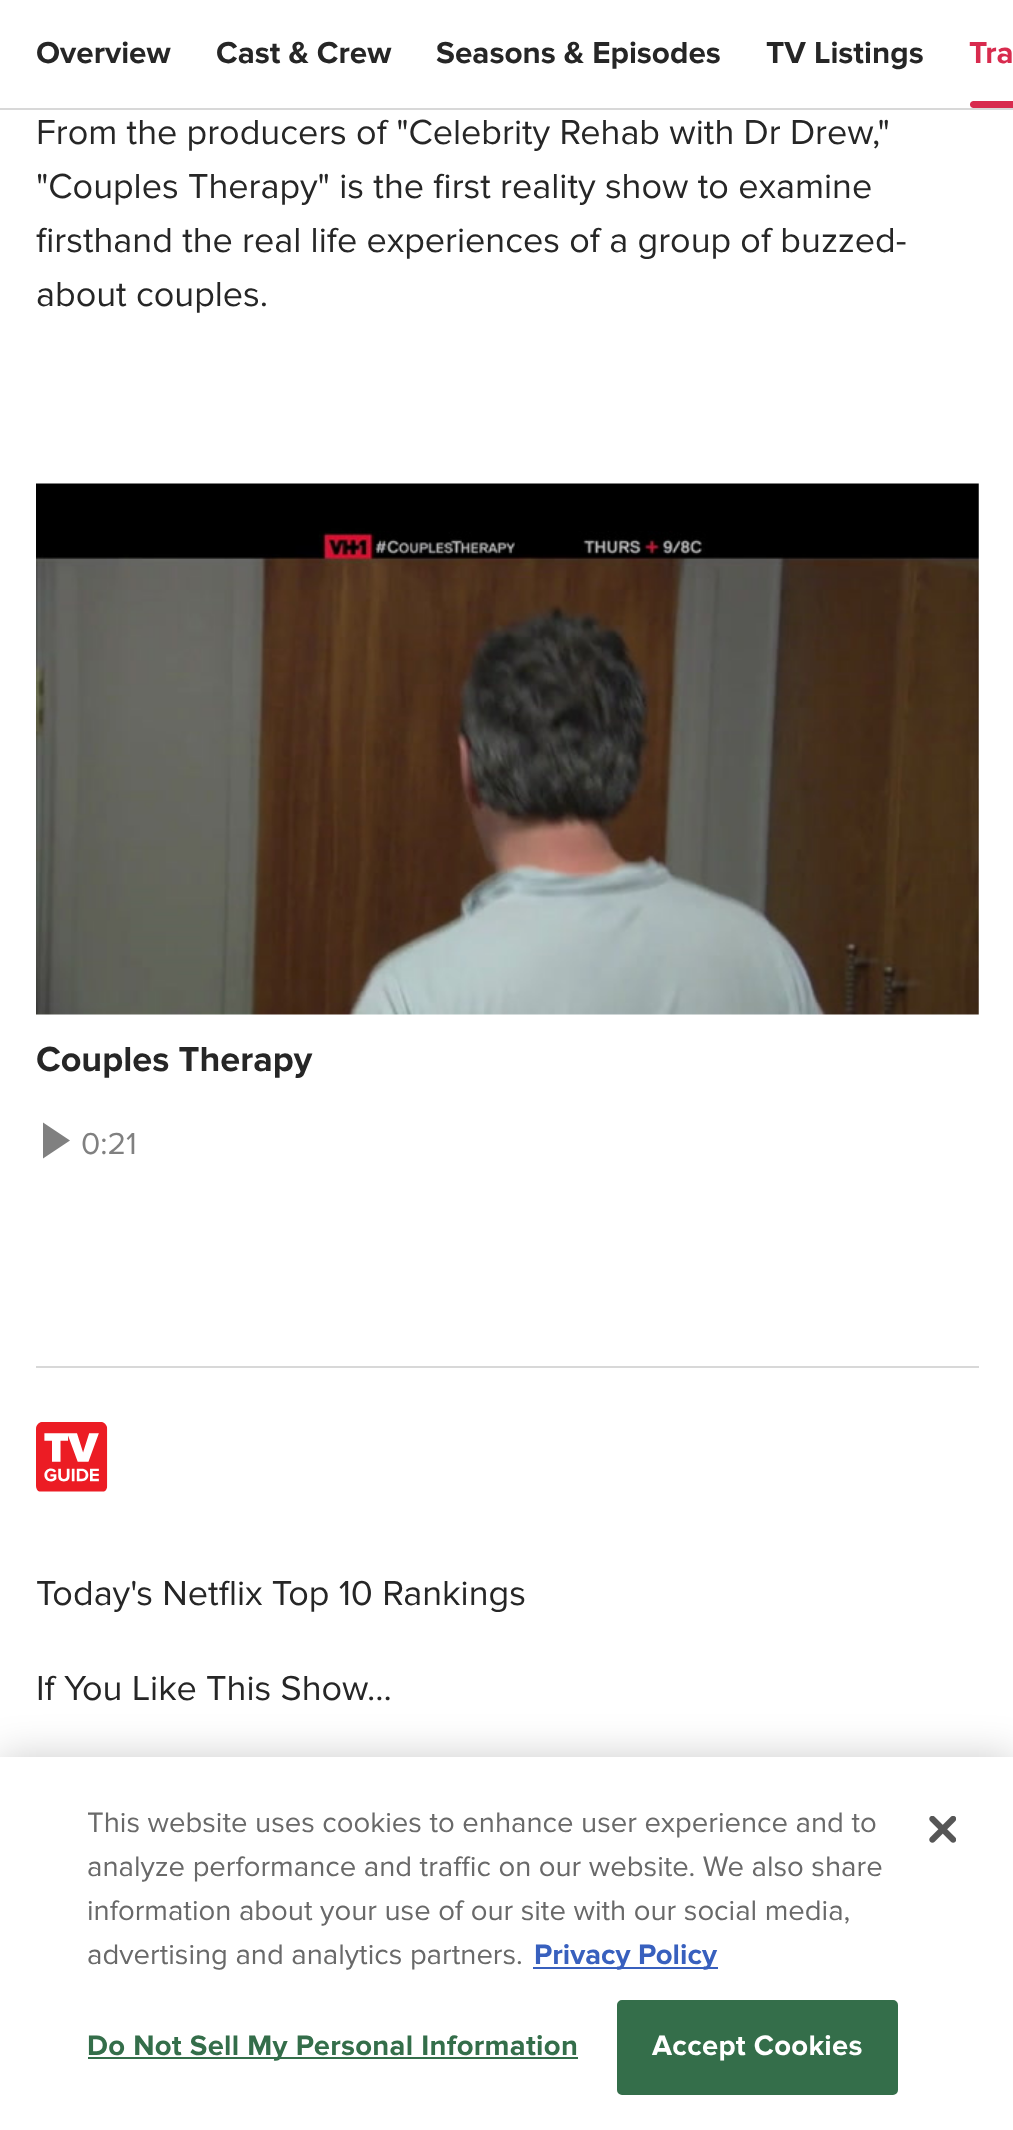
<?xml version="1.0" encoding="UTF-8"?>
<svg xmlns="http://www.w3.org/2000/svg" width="1013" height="2130">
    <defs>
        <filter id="blur1" x="-50%" y="-200%" width="200%" height="500%"><feGaussianBlur stdDeviation="20"/></filter>
        <clipPath id="clip1"><rect x="88" y="1802" width="794" height="176"/></clipPath>
    </defs>
    <rect width="100%" height="100%" fill="#FFFFFF"/>
    <rect x="0" y="108" width="1013" height="2" fill="#D8D8D8"/>
    <text x="36" y="63" font-family="Proxima Nova" font-size="31.5" font-weight="700" fill="#262626">Overview</text>
    <text x="216" y="63" font-family="Proxima Nova" font-size="31.5" font-weight="700" fill="#262626">Cast &amp; Crew</text>
    <text x="436" y="63" font-family="Proxima Nova" font-size="31.5" font-weight="700" fill="#262626">Seasons &amp; Episodes</text>
    <text x="766" y="63" font-family="Proxima Nova" font-size="31.5" font-weight="700" fill="#262626">TV Listings</text>
    <text x="969" y="63" font-family="Proxima Nova" font-size="31.5" font-weight="700" fill="#D82B4E">Tra</text>
    <path d="M 973.5 101 H 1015 V 108 H 973.5 C 971.5 108 970 106.5 970 104.5 C 970 102.5 971.5 101 973.5 101 Z" fill="#D82B4E"/>
    <text font-family="Proxima Nova" font-size="36" fill="#262626">
        <tspan x="36" y="144">From the producers of "Celebrity Rehab with Dr Drew,"</tspan>
        <tspan x="36" y="198">"Couples Therapy" is the first reality show to examine</tspan>
        <tspan x="36" y="252">firsthand the real life experiences of a group of buzzed-</tspan>
        <tspan x="36" y="306">about couples.</tspan>
    </text>
    <image x="36" y="483" width="943" height="532" href="img_01.png"/>
    <text x="36" y="1071" font-family="Proxima Nova" font-size="36" font-weight="700" fill="#262626">Couples Therapy</text>
    <path d="M 43 1158.5 V 1122.5 L 70 1140.5 Z" fill="#808080"/>
    <text x="81" y="1154" font-family="Proxima Nova" font-size="31.5" fill="#808080">0:21</text>
    <rect x="36" y="1366" width="943" height="2" fill="#D8D8D8"/>
    <image x="36" y="1422" width="72" height="70" href="img_02.png"/>
    <text x="36" y="1605" font-family="Proxima Nova" font-size="36" fill="#262626">Today's Netflix Top 10 Rankings</text>
    <text x="36" y="1700" font-family="Proxima Nova" font-size="36" fill="#262626">If You Like This Show...</text>
    <rect x="0" y="1757" width="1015" height="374" fill="#000000" fill-opacity="0.2" filter="url(#blur1)"/>
    <rect x="0" y="1757" width="1013" height="373" fill="#FFFFFF"/>
    <g clip-path="url(#clip1)">
        <text x="87" y="1832" font-family="Proxima Nova" font-size="29.25" fill="#696969">This website uses cookies to enhance user experience and to</text>
    </g>
    <text font-family="Proxima Nova" font-size="29.25" fill="#696969">
        <tspan x="87" y="1876">analyze performance and traffic on our website. We also share</tspan>
        <tspan x="87" y="1920">information about your use of our site with our social media,</tspan>
        <tspan x="87" y="1964">advertising and analytics partners.</tspan>
    </text>
    <rect x="533" y="1967" width="185" height="2" fill="#3860BE"/>
    <text x="534" y="1964" font-family="Proxima Nova" font-size="29.25" font-weight="700" fill="#3860BE">Privacy Policy</text>
    <rect x="88" y="2057" width="490" height="2" fill="#346E4A"/>
    <text x="87" y="2055" font-family="Proxima Nova" font-size="29.25" font-weight="700" letter-spacing="0.3" fill="#346E4A">Do Not Sell My Personal Information</text>
    <rect x="618" y="2001" width="279" height="93" rx="4" fill="#346E4A" stroke="#346E4A" stroke-width="2"/>
    <text x="652" y="2055" font-family="Proxima Nova" font-size="29.25" font-weight="700" letter-spacing="0.3" fill="#FFFFFF">Accept Cookies</text>
    <image x="929" y="1816" width="27" height="27" href="img_03.png"/>
</svg>
